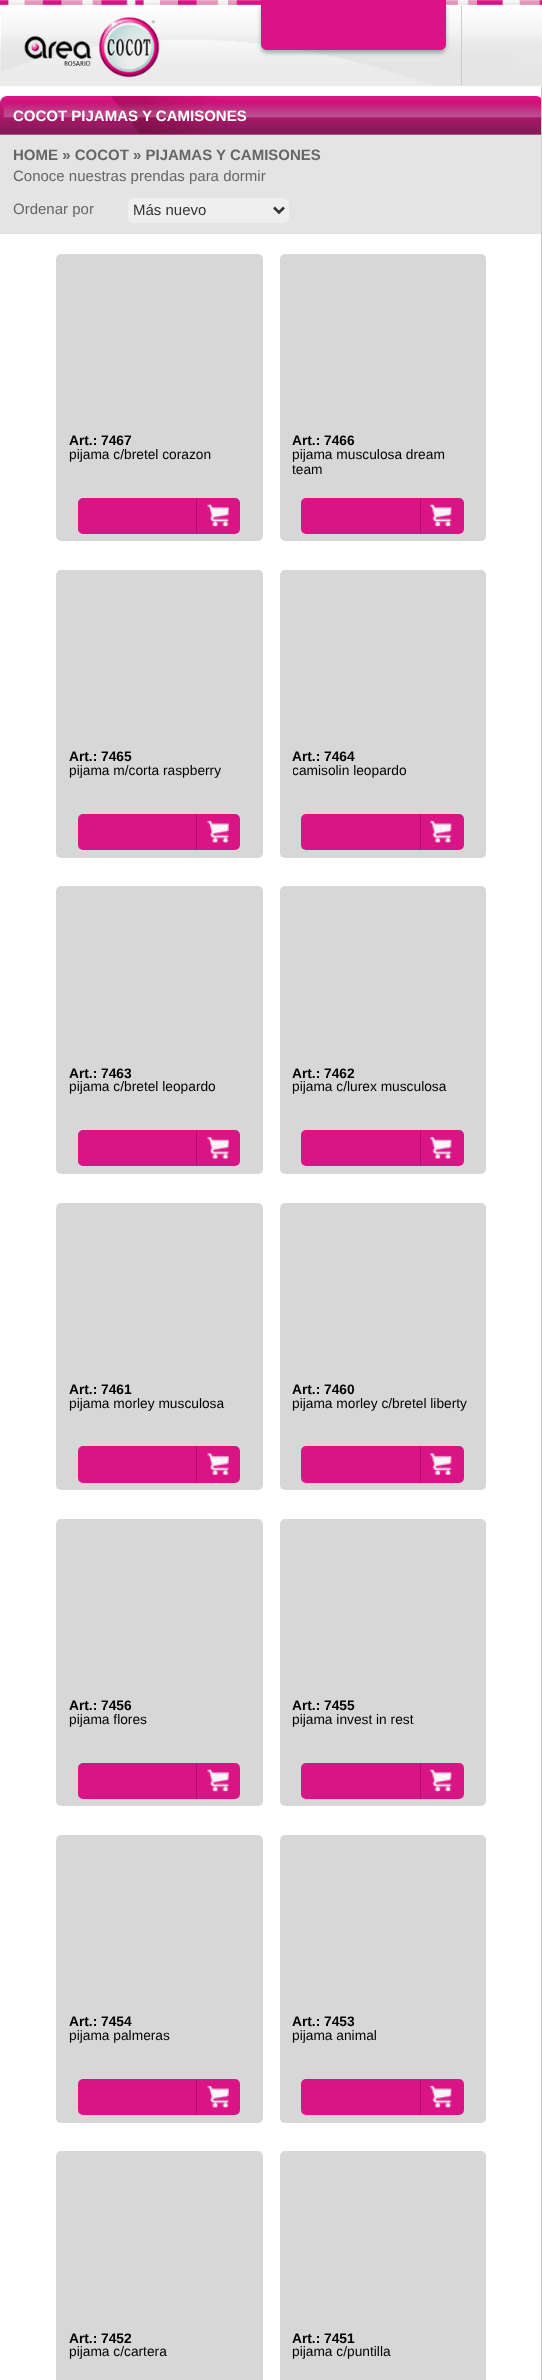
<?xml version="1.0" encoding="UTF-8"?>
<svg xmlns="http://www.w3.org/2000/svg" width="542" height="2380">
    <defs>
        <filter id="blur1" x="-50%" y="-200%" width="200%" height="500%"><feGaussianBlur stdDeviation="2"/></filter>
        <clipPath id="clip1"><rect x="293" y="763" width="178" height="50"/></clipPath>
    </defs>
    <rect width="100%" height="100%" fill="#FFFFFF"/>
    <rect x="541" y="86" width="1" height="2294" fill="#CCCCCC"/>
    <image x="0" y="0" width="542" height="87" href="img_01.png"/>
    <rect x="261" y="3" width="185" height="50" rx="6" fill="#000000" fill-opacity="0.3" filter="url(#blur1)"/>
    <path d="M 261 0 H 446 V 44 C 446 47.5 443.5 50 440 50 H 267 C 263.5 50 261 47.5 261 44 Z" fill="#DC1386"/>
    <rect x="461" y="6" width="1" height="80" fill="#CCCCCC"/>
    <image x="0" y="96" width="541" height="39" href="img_02.png"/>
    <text x="13" y="121" font-family="Liberation Sans" font-size="15" font-weight="700" fill="#FFFFFF">COCOT PIJAMAS Y CAMISONES</text>
    <rect x="0" y="135" width="541" height="99" fill="#E4E4E4"/>
    <text x="13" y="160" font-family="Liberation Sans" font-size="15" font-weight="700" fill="#666666">HOME » COCOT » PIJAMAS Y CAMISONES</text>
    <text x="13" y="181" font-family="Liberation Sans" font-size="15" fill="#666666">Conoce nuestras prendas para dormir</text>
    <text x="13" y="214" font-family="Liberation Sans" font-size="15" fill="#666666">Ordenar por</text>
    <rect x="128" y="198" width="161" height="25" rx="6" fill="#EFEFEF"/>
    <path d="M 274 207.5 L 279 212.5 L 284 207.5" fill="none" stroke="#333333" stroke-width="2.5"/>
    <text x="133" y="215" font-family="Liberation Sans" font-size="15" fill="#333333">Más nuevo</text>
    <rect x="56" y="254" width="207" height="287" rx="5" fill="#D7D7D7"/>
    <text x="69" y="445" font-family="Liberation Sans" font-size="13.75" font-weight="700" fill="#000000">Art.: 7467</text>
    <text x="69" y="459" font-family="Liberation Sans" font-size="13.75" fill="#000000">pijama c/bretel corazon</text>
    <rect x="78" y="498" width="162" height="36" rx="5" fill="#D91485"/>
    <image x="207" y="504" width="22" height="23" href="img_03.png"/>
    <rect x="196" y="498" width="1" height="36" fill="#AE106A"/>
    <rect x="280" y="254" width="206" height="287" rx="5" fill="#D7D7D7"/>
    <text x="292" y="445" font-family="Liberation Sans" font-size="13.75" font-weight="700" fill="#000000">Art.: 7466</text>
    <text font-family="Liberation Sans" font-size="13.75" fill="#000000">
        <tspan x="292" y="459">pijama musculosa dream</tspan>
        <tspan x="292" y="474">team</tspan>
    </text>
    <rect x="301" y="498" width="163" height="36" rx="5" fill="#D91485"/>
    <image x="429" y="504" width="23" height="23" href="img_04.png"/>
    <rect x="420" y="498" width="1" height="36" fill="#AE106A"/>
    <rect x="56" y="570" width="207" height="288" rx="5" fill="#D7D7D7"/>
    <text x="69" y="761" font-family="Liberation Sans" font-size="13.75" font-weight="700" fill="#000000">Art.: 7465</text>
    <text x="69" y="775" font-family="Liberation Sans" font-size="13.75" fill="#000000">pijama m/corta raspberry</text>
    <rect x="78" y="814" width="162" height="36" rx="5" fill="#D91485"/>
    <image x="207" y="820" width="22" height="23" href="img_05.png"/>
    <rect x="196" y="814" width="1" height="36" fill="#AE106A"/>
    <rect x="280" y="570" width="206" height="288" rx="5" fill="#D7D7D7"/>
    <text x="292" y="761" font-family="Liberation Sans" font-size="13.75" font-weight="700" fill="#000000">Art.: 7464</text>
    <g clip-path="url(#clip1)">
        <text x="292" y="775" font-family="Liberation Sans" font-size="13.75" fill="#000000">camisolin leopardo</text>
    </g>
    <rect x="301" y="814" width="163" height="36" rx="5" fill="#D91485"/>
    <image x="429" y="820" width="23" height="23" href="img_06.png"/>
    <rect x="420" y="814" width="1" height="36" fill="#AE106A"/>
    <rect x="56" y="886" width="207" height="288" rx="5" fill="#D7D7D7"/>
    <text x="69" y="1078" font-family="Liberation Sans" font-size="13.75" font-weight="700" fill="#000000">Art.: 7463</text>
    <text x="69" y="1091" font-family="Liberation Sans" font-size="13.75" fill="#000000">pijama c/bretel leopardo</text>
    <rect x="78" y="1130" width="162" height="36" rx="5" fill="#D91485"/>
    <image x="207" y="1137" width="22" height="22" href="img_07.png"/>
    <rect x="196" y="1130" width="1" height="36" fill="#AE106A"/>
    <rect x="280" y="886" width="206" height="288" rx="5" fill="#D7D7D7"/>
    <text x="292" y="1078" font-family="Liberation Sans" font-size="13.75" font-weight="700" fill="#000000">Art.: 7462</text>
    <text x="292" y="1091" font-family="Liberation Sans" font-size="13.75" fill="#000000">pijama c/lurex musculosa</text>
    <rect x="301" y="1130" width="163" height="36" rx="5" fill="#D91485"/>
    <image x="429" y="1137" width="23" height="22" href="img_08.png"/>
    <rect x="420" y="1130" width="1" height="36" fill="#AE106A"/>
    <rect x="56" y="1203" width="207" height="287" rx="5" fill="#D7D7D7"/>
    <text x="69" y="1394" font-family="Liberation Sans" font-size="13.75" font-weight="700" fill="#000000">Art.: 7461</text>
    <text x="69" y="1408" font-family="Liberation Sans" font-size="13.75" fill="#000000">pijama morley musculosa</text>
    <rect x="78" y="1446" width="162" height="37" rx="5" fill="#D91485"/>
    <image x="207" y="1453" width="22" height="22" href="img_09.png"/>
    <rect x="196" y="1446" width="1" height="37" fill="#AE106A"/>
    <rect x="280" y="1203" width="206" height="287" rx="5" fill="#D7D7D7"/>
    <text x="292" y="1394" font-family="Liberation Sans" font-size="13.75" font-weight="700" fill="#000000">Art.: 7460</text>
    <text x="292" y="1408" font-family="Liberation Sans" font-size="13.75" fill="#000000">pijama morley c/bretel liberty</text>
    <rect x="301" y="1446" width="163" height="37" rx="5" fill="#D91485"/>
    <image x="429" y="1453" width="23" height="22" href="img_10.png"/>
    <rect x="420" y="1446" width="1" height="37" fill="#AE106A"/>
    <rect x="56" y="1519" width="207" height="287" rx="5" fill="#D7D7D7"/>
    <text x="69" y="1710" font-family="Liberation Sans" font-size="13.75" font-weight="700" fill="#000000">Art.: 7456</text>
    <text x="69" y="1724" font-family="Liberation Sans" font-size="13.75" fill="#000000">pijama flores</text>
    <rect x="78" y="1763" width="162" height="36" rx="5" fill="#D91485"/>
    <image x="207" y="1769" width="22" height="23" href="img_03.png"/>
    <rect x="196" y="1763" width="1" height="36" fill="#AE106A"/>
    <rect x="280" y="1519" width="206" height="287" rx="5" fill="#D7D7D7"/>
    <text x="292" y="1710" font-family="Liberation Sans" font-size="13.75" font-weight="700" fill="#000000">Art.: 7455</text>
    <text x="292" y="1724" font-family="Liberation Sans" font-size="13.75" fill="#000000">pijama invest in rest</text>
    <rect x="301" y="1763" width="163" height="36" rx="5" fill="#D91485"/>
    <image x="429" y="1769" width="23" height="23" href="img_04.png"/>
    <rect x="420" y="1763" width="1" height="36" fill="#AE106A"/>
    <rect x="56" y="1835" width="207" height="288" rx="5" fill="#D7D7D7"/>
    <text x="69" y="2026" font-family="Liberation Sans" font-size="13.75" font-weight="700" fill="#000000">Art.: 7454</text>
    <text x="69" y="2040" font-family="Liberation Sans" font-size="13.75" fill="#000000">pijama palmeras</text>
    <rect x="78" y="2079" width="162" height="36" rx="5" fill="#D91485"/>
    <image x="207" y="2085" width="22" height="23" href="img_05.png"/>
    <rect x="196" y="2079" width="1" height="36" fill="#AE106A"/>
    <rect x="280" y="1835" width="206" height="288" rx="5" fill="#D7D7D7"/>
    <text x="292" y="2026" font-family="Liberation Sans" font-size="13.75" font-weight="700" fill="#000000">Art.: 7453</text>
    <text x="292" y="2040" font-family="Liberation Sans" font-size="13.75" fill="#000000">pijama animal</text>
    <rect x="301" y="2079" width="163" height="36" rx="5" fill="#D91485"/>
    <image x="429" y="2085" width="23" height="23" href="img_06.png"/>
    <rect x="420" y="2079" width="1" height="36" fill="#AE106A"/>
    <rect x="56" y="2151" width="207" height="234" rx="5" fill="#D7D7D7"/>
    <text x="69" y="2343" font-family="Liberation Sans" font-size="13.75" font-weight="700" fill="#000000">Art.: 7452</text>
    <text x="69" y="2356" font-family="Liberation Sans" font-size="13.75" fill="#000000">pijama c/cartera</text>
    <rect x="280" y="2151" width="206" height="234" rx="5" fill="#D7D7D7"/>
    <text x="292" y="2343" font-family="Liberation Sans" font-size="13.75" font-weight="700" fill="#000000">Art.: 7451</text>
    <text x="292" y="2356" font-family="Liberation Sans" font-size="13.75" fill="#000000">pijama c/puntilla</text>
</svg>
